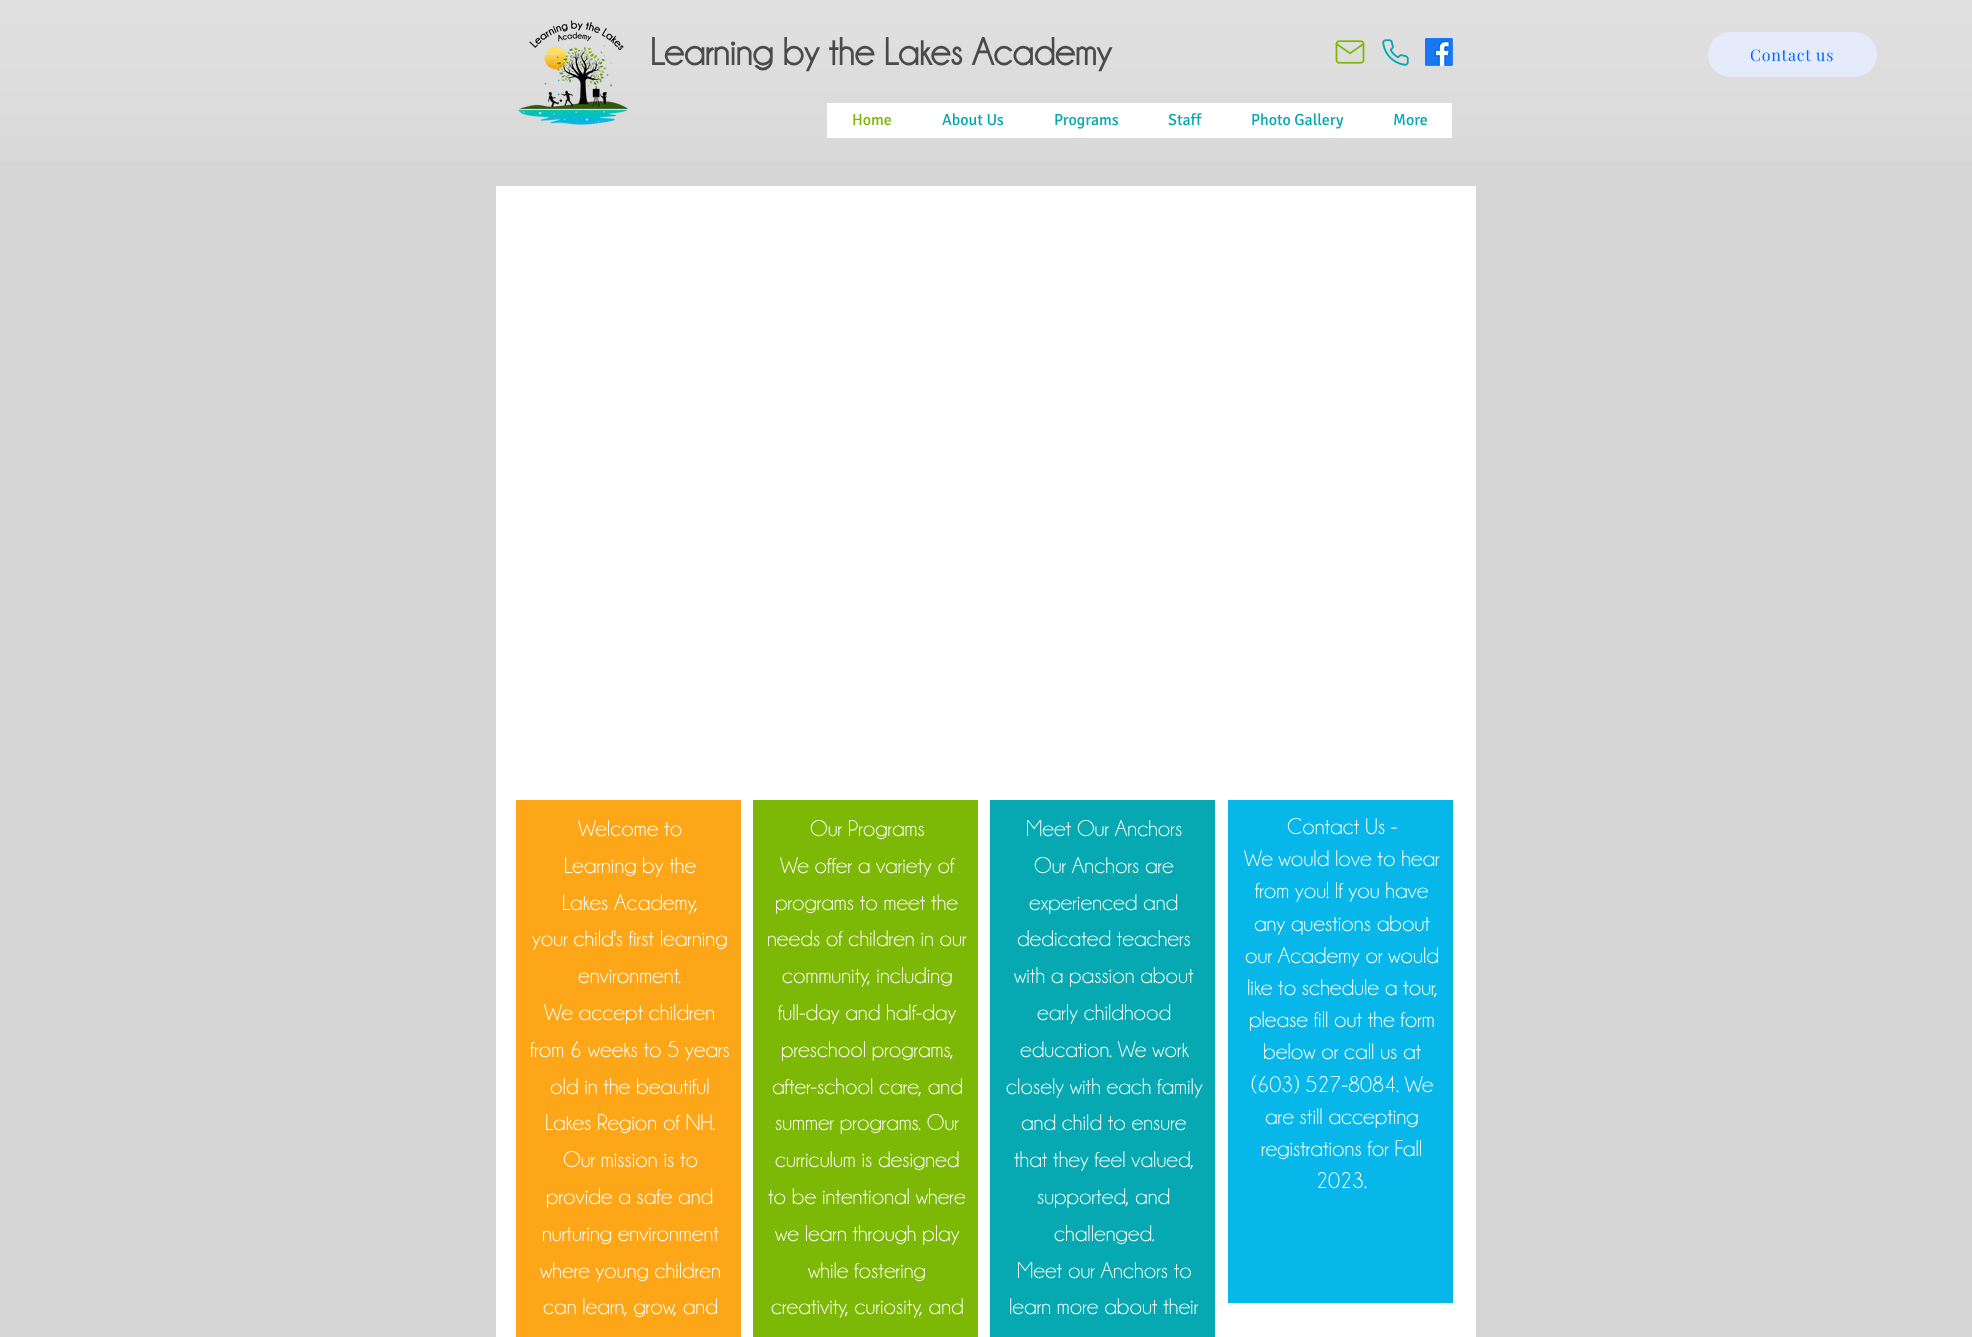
<?xml version="1.0" encoding="UTF-8"?>
<svg xmlns="http://www.w3.org/2000/svg" width="1972" height="1337">
    <rect width="100%" height="100%" fill="#D6D6D6"/>
    <image x="0" y="0" width="1972" height="161" href="img_01.png"/>
    <image x="518" y="20" width="110" height="105" href="img_02.png"/>
    <text x="650" y="65" font-family="'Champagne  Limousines'" font-size="39" font-weight="700" fill="#4A4A4A">Learning by the Lakes Academy</text>
    <image x="1335" y="40" width="30" height="24" href="img_03.png"/>
    <image x="1382" y="39" width="27" height="27" href="img_04.png"/>
    <image x="1425" y="38" width="28" height="28" href="img_05.png"/>
    <rect x="827" y="103" width="625" height="35" fill="#FFFFFF"/>
    <text x="852" y="125" font-family="Signika" font-size="16" fill="#7CB805">Home</text>
    <text x="942" y="125" font-family="Signika" font-size="16" fill="#06A9B1">About Us</text>
    <text x="1054" y="125" font-family="Signika" font-size="16" fill="#06A9B1">Programs</text>
    <text x="1168" y="125" font-family="Signika" font-size="16" fill="#06A9B1">Staff</text>
    <text x="1251" y="125" font-family="Signika" font-size="16" fill="#06A9B1">Photo Gallery</text>
    <text x="1393" y="125" font-family="Signika" font-size="16" fill="#06A9B1">More</text>
    <rect x="1708" y="32" width="169" height="45" rx="22.5" fill="#E5EBFA"/>
    <text x="1750" y="61" font-family="Playfair Display" font-size="16" letter-spacing="0.75" fill="#0069FF">Contact us</text>
    <rect x="496" y="186" width="980" height="1151" fill="#FFFFFF"/>
    <rect x="516" y="800" width="225" height="537" fill="#FDA617"/>
    <text x="578" y="836" font-family="'Champagne  Limousines'" font-size="23" fill="#FFFFFF">Welcome to</text>
    <text x="564" y="873" font-family="'Champagne  Limousines'" font-size="23" fill="#FFFFFF">Learning by the</text>
    <text x="562" y="910" font-family="'Champagne  Limousines'" font-size="23" fill="#FFFFFF">Lakes Academy,</text>
    <text x="532" y="946" font-family="'Champagne  Limousines'" font-size="23" fill="#FFFFFF">your child's first learning</text>
    <text x="578" y="983" font-family="'Champagne  Limousines'" font-size="23" fill="#FFFFFF">environment.</text>
    <text x="544" y="1020" font-family="'Champagne  Limousines'" font-size="23" fill="#FFFFFF">We accept children</text>
    <text x="530" y="1057" font-family="'Champagne  Limousines'" font-size="23" fill="#FFFFFF">from 6 weeks to 5 years</text>
    <text x="550" y="1094" font-family="'Champagne  Limousines'" font-size="23" fill="#FFFFFF">old in the beautiful</text>
    <text x="545" y="1130" font-family="'Champagne  Limousines'" font-size="23" fill="#FFFFFF">Lakes Region of NH.</text>
    <text x="563" y="1167" font-family="'Champagne  Limousines'" font-size="23" fill="#FFFFFF">Our mission is to</text>
    <text x="546" y="1204" font-family="'Champagne  Limousines'" font-size="23" fill="#FFFFFF">provide a safe and</text>
    <text x="542" y="1241" font-family="'Champagne  Limousines'" font-size="23" fill="#FFFFFF">nurturing environment</text>
    <text x="540" y="1278" font-family="'Champagne  Limousines'" font-size="23" fill="#FFFFFF">where young children</text>
    <text x="543" y="1314" font-family="'Champagne  Limousines'" font-size="23" fill="#FFFFFF">can learn, grow, and</text>
    <rect x="753" y="800" width="225" height="537" fill="#7CB805"/>
    <text x="810" y="836" font-family="'Champagne  Limousines'" font-size="23" fill="#FFFFFF">Our Programs</text>
    <text x="780" y="873" font-family="'Champagne  Limousines'" font-size="23" fill="#FFFFFF">We offer a variety of</text>
    <text x="775" y="910" font-family="'Champagne  Limousines'" font-size="23" fill="#FFFFFF">programs to meet the</text>
    <text x="767" y="946" font-family="'Champagne  Limousines'" font-size="23" fill="#FFFFFF">needs of children in our</text>
    <text x="782" y="983" font-family="'Champagne  Limousines'" font-size="23" fill="#FFFFFF">community, including</text>
    <text x="778" y="1020" font-family="'Champagne  Limousines'" font-size="23" fill="#FFFFFF">full-day and half-day</text>
    <text x="781" y="1057" font-family="'Champagne  Limousines'" font-size="23" fill="#FFFFFF">preschool programs,</text>
    <text x="772" y="1094" font-family="'Champagne  Limousines'" font-size="23" fill="#FFFFFF">after-school care, and</text>
    <text font-family="'Champagne  Limousines'" font-size="23" fill="#FFFFFF">
        <tspan x="775" y="1130">summer programs. Our</tspan>
        <tspan x="775" y="1167">curriculum is designed</tspan>
    </text>
    <text x="768" y="1204" font-family="'Champagne  Limousines'" font-size="23" fill="#FFFFFF">to be intentional where</text>
    <text x="775" y="1241" font-family="'Champagne  Limousines'" font-size="23" fill="#FFFFFF">we learn through play</text>
    <text x="808" y="1278" font-family="'Champagne  Limousines'" font-size="23" fill="#FFFFFF">while fostering</text>
    <text x="771" y="1314" font-family="'Champagne  Limousines'" font-size="23" fill="#FFFFFF">creativity, curiosity, and</text>
    <rect x="990" y="800" width="225" height="537" fill="#06A9B1"/>
    <text x="1026" y="836" font-family="'Champagne  Limousines'" font-size="23" fill="#FFFFFF">Meet Our Anchors</text>
    <text x="1034" y="873" font-family="'Champagne  Limousines'" font-size="23" fill="#FFFFFF">Our Anchors are</text>
    <text x="1029" y="910" font-family="'Champagne  Limousines'" font-size="23" fill="#FFFFFF">experienced and</text>
    <text x="1017" y="946" font-family="'Champagne  Limousines'" font-size="23" fill="#FFFFFF">dedicated teachers</text>
    <text x="1014" y="983" font-family="'Champagne  Limousines'" font-size="23" fill="#FFFFFF">with a passion about</text>
    <text x="1037" y="1020" font-family="'Champagne  Limousines'" font-size="23" fill="#FFFFFF">early childhood</text>
    <text x="1020" y="1057" font-family="'Champagne  Limousines'" font-size="23" fill="#FFFFFF">education. We work</text>
    <text x="1006" y="1094" font-family="'Champagne  Limousines'" font-size="23" fill="#FFFFFF">closely with each family</text>
    <text x="1021" y="1130" font-family="'Champagne  Limousines'" font-size="23" fill="#FFFFFF">and child to ensure</text>
    <text x="1014" y="1167" font-family="'Champagne  Limousines'" font-size="23" fill="#FFFFFF">that they feel valued,</text>
    <text x="1037" y="1204" font-family="'Champagne  Limousines'" font-size="23" fill="#FFFFFF">supported, and</text>
    <text x="1054" y="1241" font-family="'Champagne  Limousines'" font-size="23" fill="#FFFFFF">challenged.</text>
    <text x="1017" y="1278" font-family="'Champagne  Limousines'" font-size="23" fill="#FFFFFF">Meet our Anchors to</text>
    <text x="1009" y="1314" font-family="'Champagne  Limousines'" font-size="23" fill="#FFFFFF">learn more about their</text>
    <rect x="1228" y="800" width="225" height="503" fill="#08B7E9"/>
    <text x="1287" y="834" font-family="'Champagne  Limousines'" font-size="23" fill="#FFFFFF">Contact Us -</text>
    <text x="1244" y="866" font-family="'Champagne  Limousines'" font-size="23" fill="#FFFFFF">We would love to hear</text>
    <text x="1255" y="898" font-family="'Champagne  Limousines'" font-size="23" fill="#FFFFFF">from you! If you have</text>
    <text x="1254" y="931" font-family="'Champagne  Limousines'" font-size="23" fill="#FFFFFF">any questions about</text>
    <text x="1245" y="963" font-family="'Champagne  Limousines'" font-size="23" fill="#FFFFFF">our Academy or would</text>
    <text x="1247" y="995" font-family="'Champagne  Limousines'" font-size="23" fill="#FFFFFF">like to schedule a tour,</text>
    <text x="1249" y="1027" font-family="'Champagne  Limousines'" font-size="23" fill="#FFFFFF">please fill out the form</text>
    <text x="1263" y="1059" font-family="'Champagne  Limousines'" font-size="23" fill="#FFFFFF">below or call us at</text>
    <text x="1251" y="1092" font-family="'Champagne  Limousines'" font-size="23" fill="#FFFFFF">(603) 527-8084. We</text>
    <text x="1265" y="1124" font-family="'Champagne  Limousines'" font-size="23" fill="#FFFFFF">are still accepting</text>
    <text x="1261" y="1156" font-family="'Champagne  Limousines'" font-size="23" fill="#FFFFFF">registrations for Fall</text>
    <text x="1316" y="1188" font-family="'Champagne  Limousines'" font-size="23" fill="#FFFFFF">2023.</text>
</svg>
